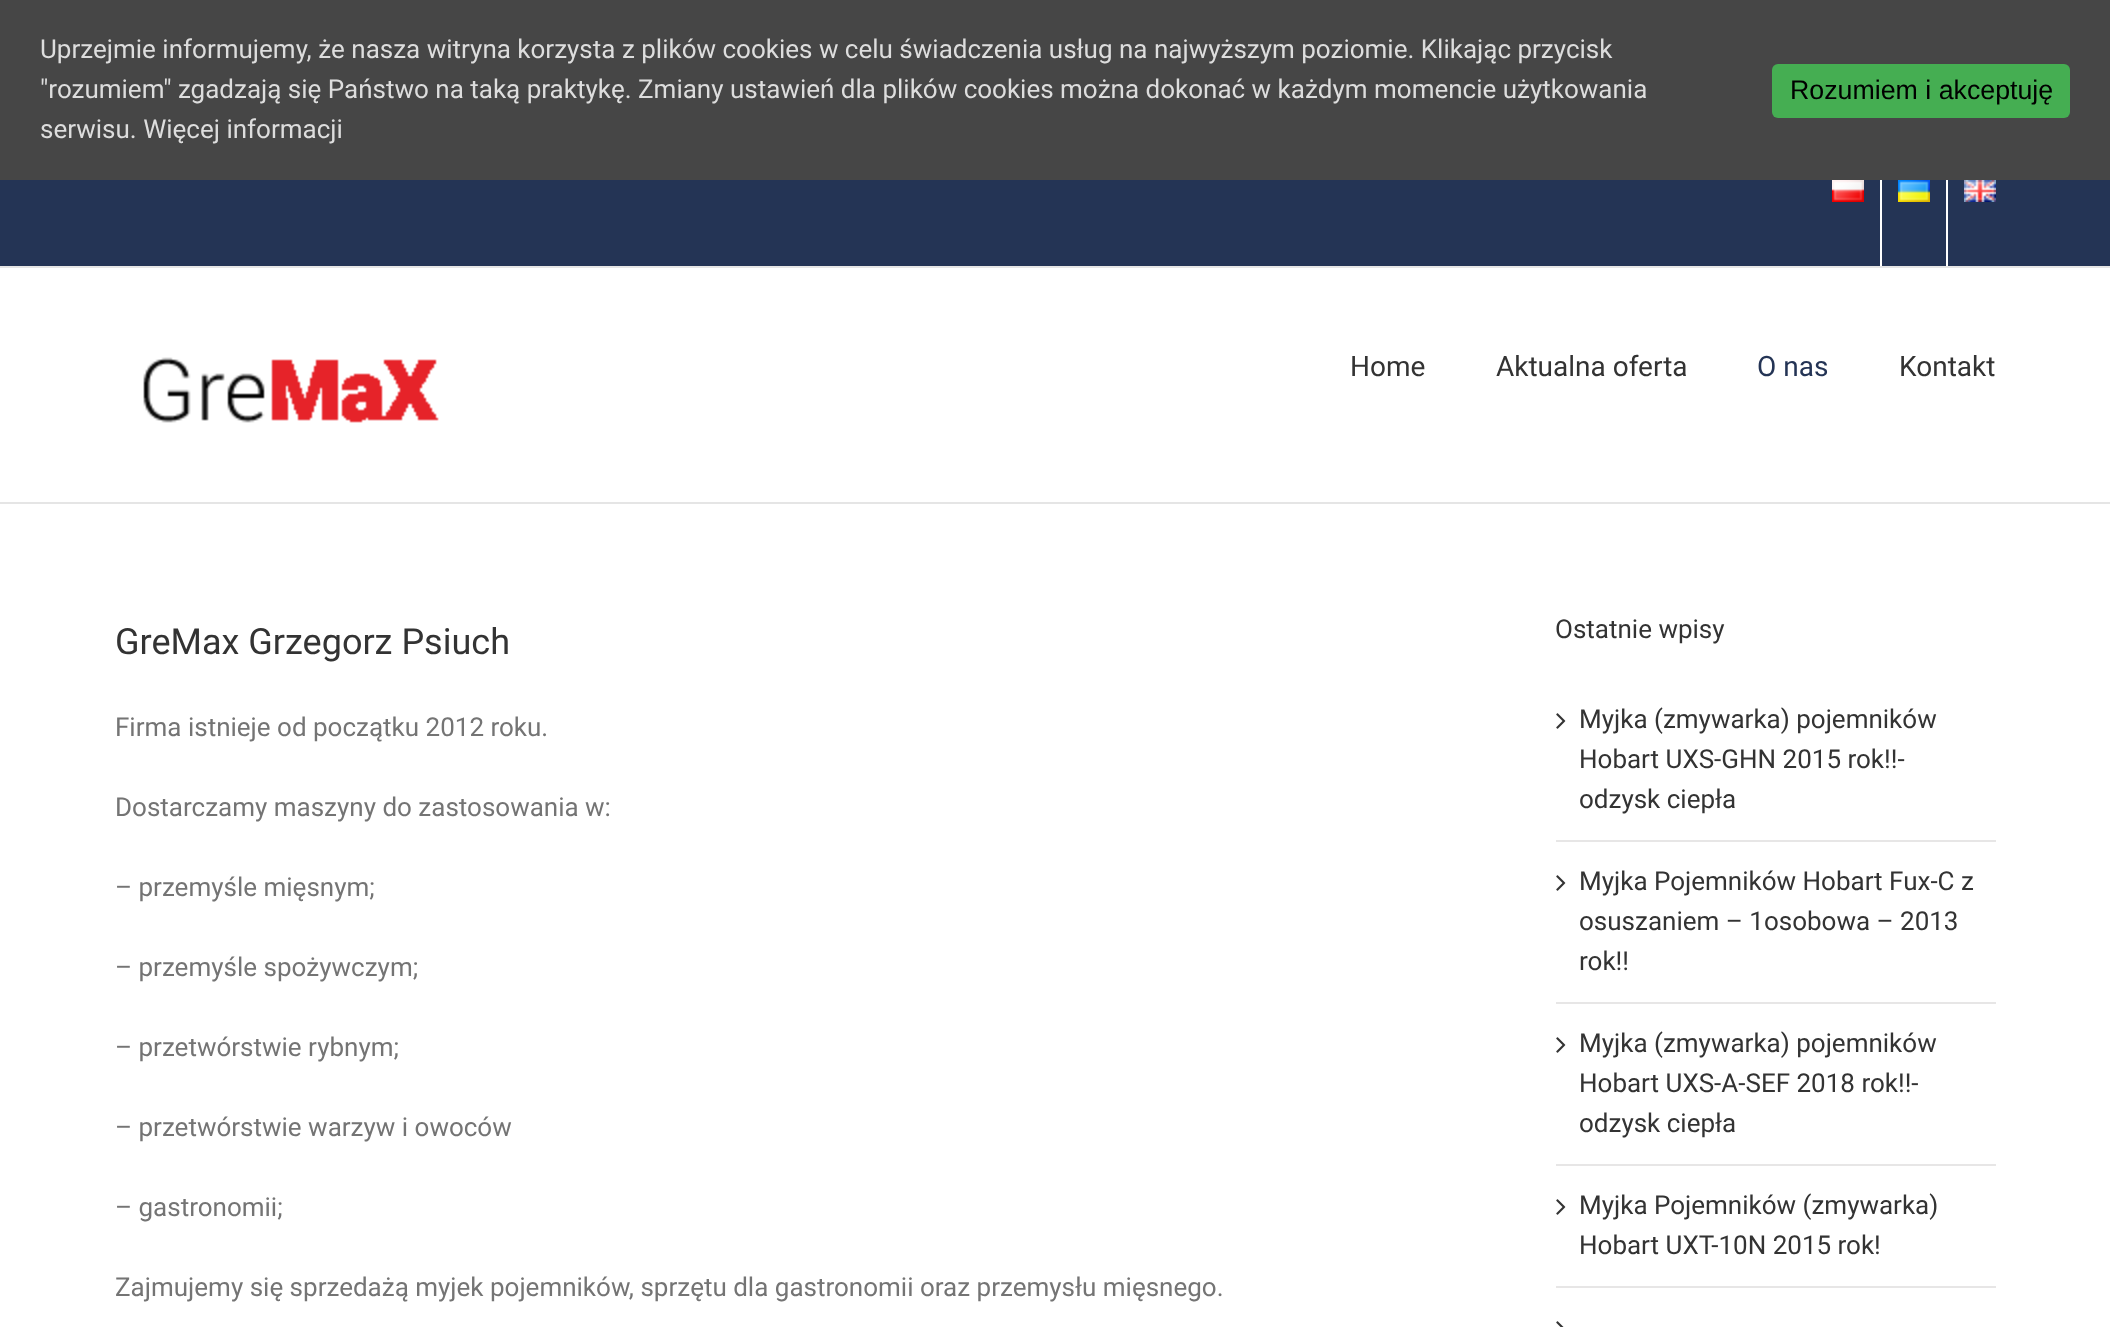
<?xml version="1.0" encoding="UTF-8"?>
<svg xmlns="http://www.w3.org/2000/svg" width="2110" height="1327">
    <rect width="100%" height="100%" fill="#FFFFFF"/>
    <rect x="0" y="0" width="2110" height="180" fill="#464646"/>
    <text font-family="Roboto" font-size="26" fill="#DDDDDD">
        <tspan x="40" y="58">Uprzejmie informujemy, że nasza witryna korzysta z plików cookies w celu świadczenia usług na najwyższym poziomie. Klikając przycisk</tspan>
        <tspan x="40" y="98">"rozumiem" zgadzają się Państwo na taką praktykę. Zmiany ustawień dla plików cookies można dokonać w każdym momencie użytkowania</tspan>
        <tspan x="40" y="138">serwisu. Więcej informacji</tspan>
    </text>
    <rect x="1772" y="64" width="298" height="54" rx="6" fill="#45AE52"/>
    <text x="1790" y="99" font-family="Liberation Sans" font-size="26.75" fill="#000000">Rozumiem i akceptuję</text>
    <rect x="0" y="180" width="2110" height="86" fill="#243455"/>
    <rect x="0" y="266" width="2110" height="2" fill="#E5E5E5"/>
    <image x="1832" y="180" width="32" height="22" href="img_01.png"/>
    <rect x="1880" y="180" width="2" height="86" fill="#FFFFFF"/>
    <image x="1898" y="180" width="32" height="22" href="img_02.png"/>
    <rect x="1946" y="180" width="2" height="86" fill="#FFFFFF"/>
    <image x="1964" y="180" width="32" height="22" href="img_03.png"/>
    <rect x="0" y="502" width="2110" height="2" fill="#E5E5E5"/>
    <image x="143" y="357" width="296" height="66" href="img_04.png"/>
    <text x="1350" y="376" font-family="Roboto" font-size="28" fill="#333333">Home</text>
    <text x="1496" y="376" font-family="Roboto" font-size="28" fill="#333333">Aktualna oferta</text>
    <text x="1757" y="376" font-family="Roboto" font-size="28" fill="#243455">O nas</text>
    <text x="1899" y="376" font-family="Roboto" font-size="28" fill="#333333">Kontakt</text>
    <text x="115" y="654" font-family="Roboto" font-size="36" fill="#333333">GreMax Grzegorz Psiuch</text>
    <text x="115" y="736" font-family="Roboto" font-size="26" fill="#747474">Firma istnieje od początku 2012 roku.</text>
    <text x="115" y="816" font-family="Roboto" font-size="26" fill="#747474">Dostarczamy maszyny do zastosowania w:</text>
    <text x="115" y="896" font-family="Roboto" font-size="26" fill="#747474">– przemyśle mięsnym;</text>
    <text x="115" y="976" font-family="Roboto" font-size="26" fill="#747474">– przemyśle spożywczym;</text>
    <text x="115" y="1056" font-family="Roboto" font-size="26" fill="#747474">– przetwórstwie rybnym;</text>
    <text x="115" y="1136" font-family="Roboto" font-size="26" fill="#747474">– przetwórstwie warzyw i owoców</text>
    <text x="115" y="1216" font-family="Roboto" font-size="26" fill="#747474">– gastronomii;</text>
    <text x="115" y="1296" font-family="Roboto" font-size="26" fill="#747474">Zajmujemy się sprzedażą myjek pojemników, sprzętu dla gastronomii oraz przemysłu mięsnego.</text>
    <text x="1555" y="638" font-family="Roboto" font-size="26" fill="#333333">Ostatnie wpisy</text>
    <rect x="1556" y="840" width="440" height="2" fill="#E7E6E6"/>
    <image x="1556" y="713" width="10" height="16" href="img_05.png"/>
    <text font-family="Roboto" font-size="26" fill="#333333">
        <tspan x="1579" y="728">Myjka (zmywarka) pojemników</tspan>
        <tspan x="1579" y="768">Hobart UXS-GHN 2015 rok!!-</tspan>
        <tspan x="1579" y="808">odzysk ciepła</tspan>
    </text>
    <rect x="1556" y="1002" width="440" height="2" fill="#E7E6E6"/>
    <image x="1556" y="875" width="10" height="16" href="img_05.png"/>
    <text font-family="Roboto" font-size="26" fill="#333333">
        <tspan x="1579" y="890">Myjka Pojemników Hobart Fux-C z</tspan>
        <tspan x="1579" y="930">osuszaniem – 1osobowa – 2013</tspan>
        <tspan x="1579" y="970">rok!!</tspan>
    </text>
    <rect x="1556" y="1164" width="440" height="2" fill="#E7E6E6"/>
    <image x="1556" y="1037" width="10" height="16" href="img_05.png"/>
    <text font-family="Roboto" font-size="26" fill="#333333">
        <tspan x="1579" y="1052">Myjka (zmywarka) pojemników</tspan>
        <tspan x="1579" y="1092">Hobart UXS-A-SEF 2018 rok!!-</tspan>
        <tspan x="1579" y="1132">odzysk ciepła</tspan>
    </text>
    <rect x="1556" y="1286" width="440" height="2" fill="#E7E6E6"/>
    <image x="1556" y="1199" width="10" height="16" href="img_05.png"/>
    <text font-family="Roboto" font-size="26" fill="#333333">
        <tspan x="1579" y="1214">Myjka Pojemników (zmywarka)</tspan>
        <tspan x="1579" y="1254">Hobart UXT-10N 2015 rok!</tspan>
    </text>
    <image x="1556" y="1321" width="8" height="6" href="img_06.png"/>
</svg>
